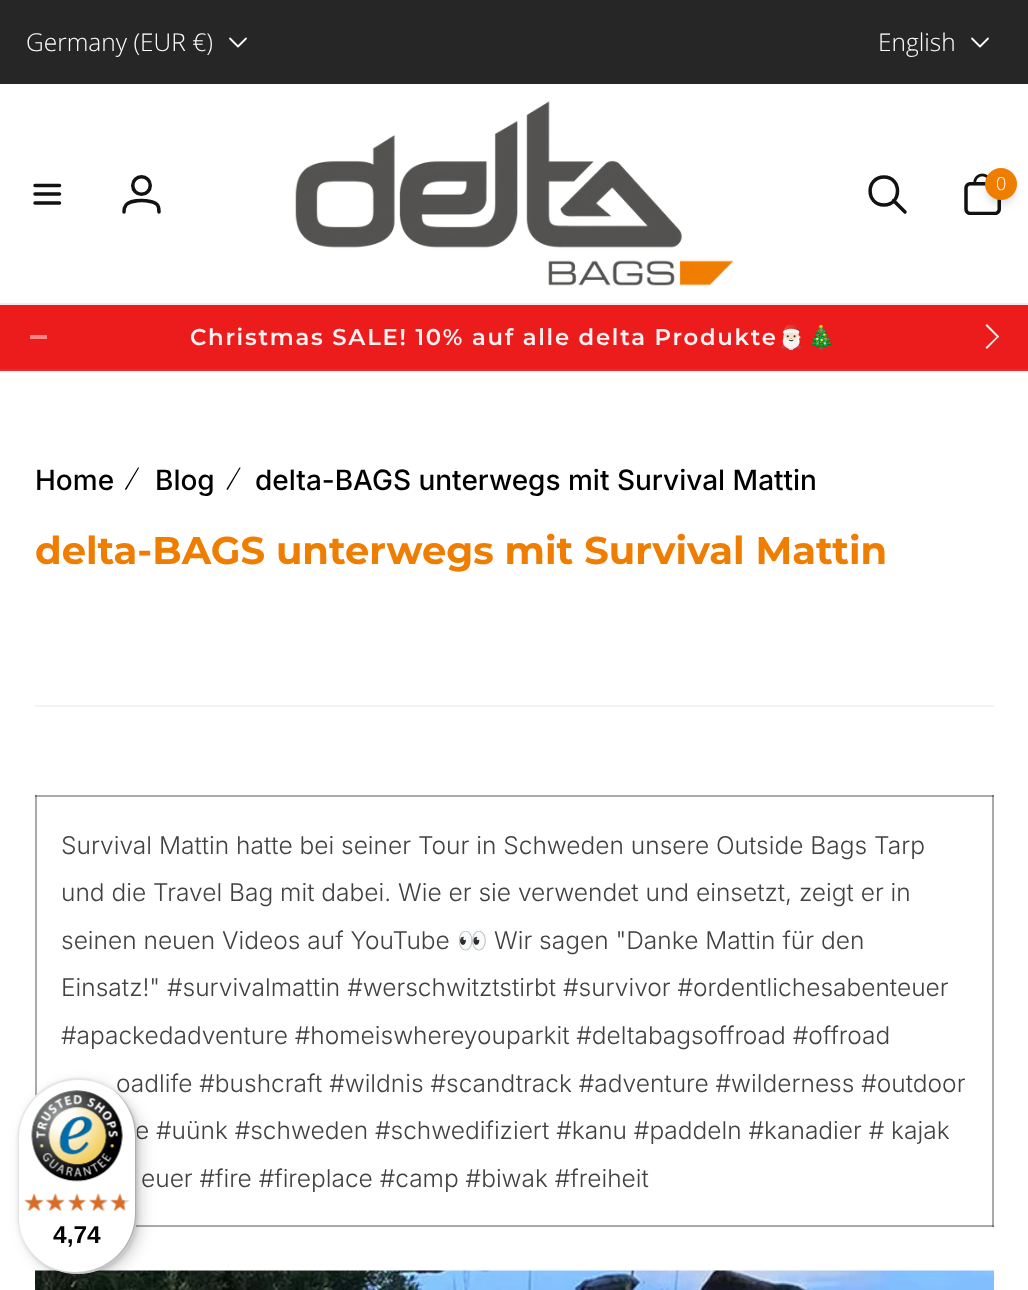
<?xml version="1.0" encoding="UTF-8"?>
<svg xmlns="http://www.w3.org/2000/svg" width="1028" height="1290">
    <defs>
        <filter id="blur1" x="-50%" y="-200%" width="200%" height="500%"><feGaussianBlur stdDeviation="3.5"/></filter>
        <filter id="blur2" x="-50%" y="-200%" width="200%" height="500%"><feGaussianBlur stdDeviation="5"/></filter>
        <filter id="blur3" x="-50%" y="-200%" width="200%" height="500%"><feGaussianBlur stdDeviation="7"/></filter>
        <filter id="blur4" x="-50%" y="-200%" width="200%" height="500%"><feGaussianBlur stdDeviation="2"/></filter>
    </defs>
    <rect width="100%" height="100%" fill="#FFFFFF"/>
    <rect x="35" y="795" width="2" height="301" fill="#AAAAAA"/>
    <rect x="135" y="1225" width="859" height="2" fill="#AAAAAA"/>
    <rect x="992" y="795" width="2" height="432" fill="#AAAAAA"/>
    <rect x="992" y="1225" width="2" height="2" fill="#747474"/>
    <rect x="0" y="0" width="1028" height="84" fill="#262626"/>
    <text x="26" y="51" font-family="Open Sans" font-size="24.5" font-weight="300" fill="#FFFFFF">Germany (EUR €)</text>
    <path d="M 246 38.5 L 238 46.5 L 230 38.5" fill="none" stroke="#FAFAFA" stroke-width="1.8" stroke-linecap="round" stroke-linejoin="round"/>
    <text x="878" y="51" font-family="Open Sans" font-size="24.5" font-weight="300" fill="#FFFFFF">English</text>
    <path d="M 988 38.5 L 980 46.5 L 972 38.5" fill="none" stroke="#FAFAFA" stroke-width="1.8" stroke-linecap="round" stroke-linejoin="round"/>
    <rect x="0" y="303" width="1028" height="2" fill="#ECECEC"/>
    <path d="M 35 185.5 H 59.5 M 35 194 H 59.5 M 35 203 H 59.5" fill="none" stroke="#121212" stroke-width="3.5" stroke-linecap="round"/>
    <circle cx="141.5" cy="185.5" r="8.75" fill="none" stroke="#121212" stroke-width="3.5"/>
    <path d="M 142 200.5 C 146 200.5 155 201.5 157.5 205 C 159 207 159 209 159 212 M 142 200.5 C 137.5 200.5 128.5 201.5 126 205 C 124.5 207 124 209 124 212" fill="none" stroke="#121212" stroke-width="3.5" stroke-linecap="round"/>
    <image x="295" y="101" width="439" height="185" href="img_01.png"/>
    <path d="M 905 212 L 893.5 200.5 M 884 205 C 902 205 902 177 884 177 C 865.5 177 865.5 205 884 205 Z" fill="none" stroke="#121212" stroke-width="3.5" stroke-linecap="round" stroke-linejoin="round"/>
    <image x="964" y="173" width="37" height="42" href="img_02.png"/>
    <rect x="987" y="173" width="28" height="28" rx="14" fill="#121212" fill-opacity="0.06" filter="url(#blur1)"/>
    <rect x="987" y="177" width="28" height="28" rx="14" fill="#121212" fill-opacity="0.1" filter="url(#blur2)"/>
    <circle cx="1001" cy="184" r="16" fill="#EF7D00"/>
    <text x="996" y="190" font-family="Open Sans" font-size="18" font-weight="300" fill="#FFFFFF">0</text>
    <rect x="0" y="305" width="1028" height="64" fill="#EC1C1C"/>
    <rect x="0" y="369" width="1028" height="2" fill="#ED2D2D"/>
    <rect x="30" y="335" width="17" height="4" fill="#F58787"/>
    <text x="190" y="345" word-spacing="-0.25" font-family="Montserrat" font-size="22.75" font-weight="600" letter-spacing="1.75" fill="#FEF2F2">Christmas SALE! 10% auf alle delta Produkte</text>
    <text x="777" y="345" font-family="Noto Color Emoji" font-size="22.75" font-weight="700" letter-spacing="1.75" fill="#FEF2F2">🎅🏻🎄</text>
    <path d="M 985.5 325.5 L 987 324 L 999 336.5 L 998 338 Z" fill="#FEF2F2"/>
    <path d="M 998 335.5 L 999 336.5 L 987 349 L 985.5 347.5 Z" fill="#FEF2F2"/>
    <text x="35" y="490" font-family="Inter" font-size="28" font-weight="500" fill="#000000">Home</text>
    <path d="M 139 467.5 H 138 L 125 489 L 125.5 490 L 126.5 489.5 L 132.5 479 L 139 468 Z" fill="#000000"/>
    <text x="155" y="490" font-family="Inter" font-size="28" font-weight="500" fill="#000000">Blog</text>
    <path d="M 240.5 467.5 H 239.5 L 226.5 489 L 227 490 L 228 489.5 L 234 479 L 240.5 468 Z" fill="#000000"/>
    <text x="255" y="490" font-family="Inter" font-size="28" font-weight="500" fill="#000000">delta-BAGS unterwegs mit Survival Mattin</text>
    <text x="35" y="564" font-family="Montserrat" font-size="38.5" font-weight="700" fill="#EF7D00">delta-BAGS unterwegs mit Survival Mattin</text>
    <rect x="35" y="705" width="959" height="2" fill="#F3F3F3"/>
    <rect x="35" y="795" width="959" height="2" fill="#AAAAAA"/>
    <rect x="35" y="795" width="2" height="2" fill="#747474"/>
    <rect x="992" y="795" width="2" height="2" fill="#747474"/>
    <text font-family="Inter" font-size="24.5" font-weight="300" fill="#424141">
        <tspan x="61" y="854">Survival Mattin hatte bei seiner Tour in Schweden unsere Outside Bags Tarp</tspan>
        <tspan x="61" y="901">und die Travel Bag mit dabei. Wie er sie verwendet und einsetzt, zeigt er in</tspan>
        <tspan x="61" y="949">seinen neuen Videos auf YouTube</tspan>
    </text>
    <text x="457" y="949" font-family="Noto Color Emoji" font-size="24.5" fill="#424141">👀</text>
    <text x="494" y="949" font-family="Inter" font-size="24.5" font-weight="300" fill="#424141">Wir sagen "Danke Mattin für den</text>
    <text font-family="Inter" font-size="24.5" font-weight="300" fill="#424141">
        <tspan x="61" y="996">Einsatz!" #survivalmattin #werschwitztstirbt #survivor #ordentlichesabenteuer</tspan>
        <tspan x="61" y="1044">#apackedadventure #homeiswhereyouparkit #deltabagsoffroad #offroad</tspan>
    </text>
    <text x="116" y="1092" font-family="Inter" font-size="24.5" font-weight="300" fill="#424141">oadlife #bushcraft #wildnis #scandtrack #adventure #wilderness #outdoor</text>
    <text x="135" y="1139" font-family="Inter" font-size="24.5" font-weight="300" fill="#424141">e #uünk #schweden #schwedifiziert #kanu #paddeln #kanadier # kajak</text>
    <text x="141" y="1187" font-family="Inter" font-size="24.5" font-weight="300" fill="#424141">euer #fire #fireplace #camp #biwak #freiheit</text>
    <image x="35" y="1270" width="959" height="20" href="img_03.png"/>
    <rect x="23" y="1083" width="119" height="196" rx="59.5" fill="#000000" fill-opacity="0.15" filter="url(#blur3)"/>
    <rect x="19" y="1080" width="119" height="196" rx="59.5" fill="#000000" fill-opacity="0.15" filter="url(#blur4)"/>
    <rect x="18" y="1078" width="119" height="196" rx="59.5" fill="#FFFFFF"/>
    <path d="M 79 1080 C 98 1080 115 1089 126 1102 C 115 1088 97 1078 78 1078 C 45 1078 18 1105 18 1138 V 1214 C 18 1227 22 1238 28 1248 C 22 1239 19 1228 19 1216 V 1139 C 19 1106 46 1080 79 1080 Z" fill="#000000" fill-opacity="0.1"/>
    <path d="M 41 1261 C 51 1269 64 1274 78 1274 C 110 1274 137 1247 137 1214 V 1138 C 137 1118 128 1102 114 1091 C 127 1102 135 1118 135 1136 V 1213 C 135 1246 108 1272 75 1272 C 62 1272 50 1268 41 1261 Z" fill="#000000" fill-opacity="0.2"/>
    <path d="M 44 1264 C 54 1270 65 1274 78 1274 C 110 1274 137 1247 137 1214 V 1138 C 137 1115 125 1096 107 1086 C 124 1096 135 1115 135 1136 V 1213 C 135 1246 109 1273 76 1273 C 64 1273 53 1270 44 1264 Z" fill="#323232" fill-opacity="0.2"/>
    <path d="M 40 1261 C 50 1269 63 1274 78 1274 C 110 1274 137 1247 137 1214 V 1138 C 137 1117 126 1099 110 1088 C 126 1099 136 1117 136 1137 V 1214 C 136 1246 109 1273 76 1273 C 62 1273 50 1268 40 1261 Z" fill="#FFFFFF" fill-opacity="0.3"/>
    <image x="31" y="1090" width="92" height="92" href="img_04.png"/>
    <image x="24" y="1194" width="20" height="17" href="img_05.png"/>
    <image x="47" y="1193" width="18" height="18" href="img_06.png"/>
    <image x="68" y="1194" width="18" height="17" href="img_07.png"/>
    <image x="89" y="1193" width="20" height="18" href="img_08.png"/>
    <image x="110" y="1194" width="20" height="17" href="img_09.png"/>
    <image x="24" y="1193" width="20" height="18" href="img_10.png"/>
    <image x="45" y="1193" width="20" height="18" href="img_11.png"/>
    <image x="68" y="1193" width="18" height="18" href="img_12.png"/>
    <image x="89" y="1193" width="18" height="18" href="img_13.png"/>
    <image x="110" y="1193" width="15" height="18" href="img_14.png"/>
    <text x="53" y="1243" font-family="Liberation Sans" font-size="24.5" font-weight="700" fill="#000000">4,74</text>
</svg>
